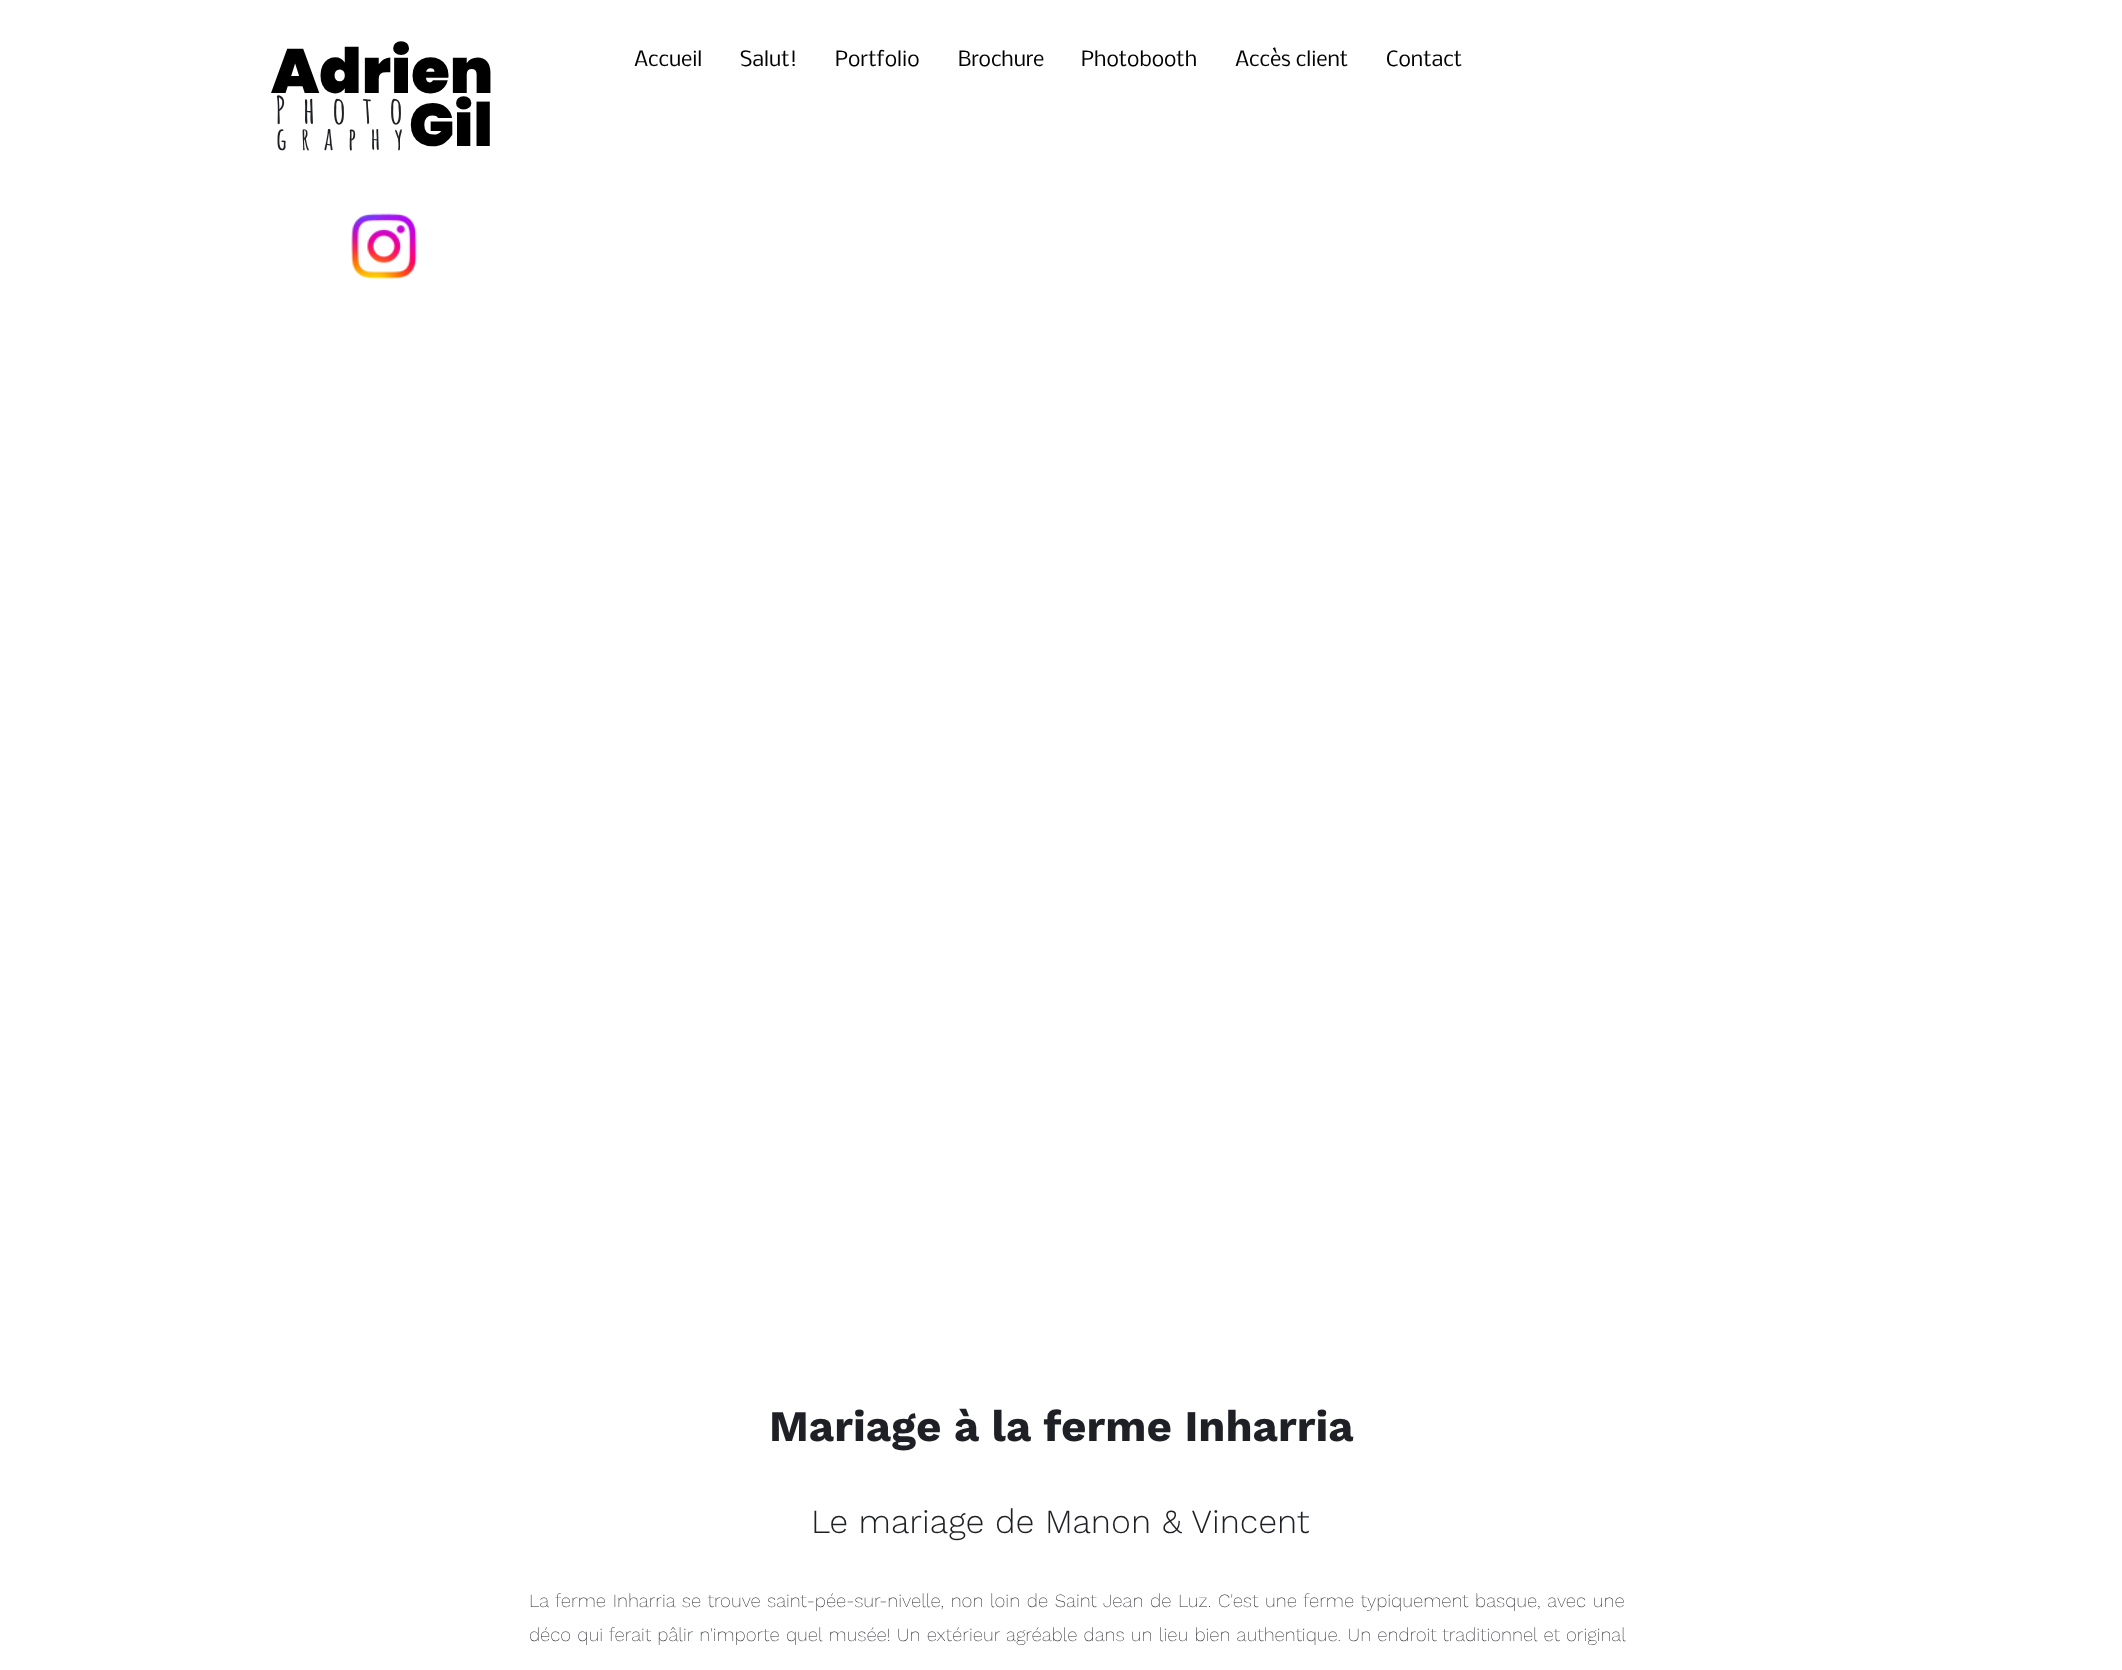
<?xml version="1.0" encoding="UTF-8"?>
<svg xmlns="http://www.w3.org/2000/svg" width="2122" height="1670">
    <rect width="100%" height="100%" fill="#FFFFFF"/>
    <text x="271" y="93" font-family="Poppins" font-size="62.5" font-weight="900" fill="#000000">Adrien</text>
    <text x="409" y="146" font-family="Poppins" font-size="60" font-weight="900" fill="#000000">Gil</text>
    <text x="634" y="66" font-family="Nobile" font-size="20" fill="#000000">Accueil</text>
    <text x="740" y="66" font-family="Nobile" font-size="20" fill="#000000">Salut!</text>
    <text x="835" y="66" font-family="Nobile" font-size="20" fill="#000000">Portfolio</text>
    <text x="958" y="66" font-family="Nobile" font-size="20" fill="#000000">Brochure</text>
    <text x="1081" y="66" font-family="Nobile" font-size="20" fill="#000000">Photobooth</text>
    <text x="1235" y="66" font-family="Nobile" font-size="20" fill="#000000">Accès client</text>
    <text x="1386" y="66" font-family="Nobile" font-size="20" fill="#000000">Contact</text>
    <text x="275" y="124" font-family="Amatic SC" font-size="37.5" font-weight="700" letter-spacing="17" fill="#1E2025">Photo</text>
    <text x="276" y="150" font-family="Amatic SC" font-size="31.25" font-weight="700" letter-spacing="14" fill="#1E2025">graphy</text>
    <image x="351" y="213" width="66" height="66" href="img_01.png"/>
    <text x="769" y="1441" font-family="Work Sans" font-size="43.75" font-weight="700" fill="#1E2025">Mariage à la ferme Inharria</text>
    <text x="811" y="1533" font-family="Work Sans" font-size="33.75" font-weight="300" fill="#1E2025">Le mariage de Manon &amp; Vincent</text>
    <text x="529" y="1607" word-spacing="1.25" font-family="Work Sans" font-size="18.75" font-weight="200" fill="#1E2025">La ferme Inharria se trouve</text>
    <text x="767" y="1607" word-spacing="1.25" font-family="Work Sans" font-size="18.75" font-weight="200" fill="#1E2025">saint-pée-sur-nivelle, non loin de Saint Jean de Luz. C'est une ferme typiquement basque, avec une</text>
    <text x="529" y="1641" word-spacing="0.75" font-family="Work Sans" font-size="18.75" font-weight="200" fill="#1E2025">déco qui ferait pâlir n'importe quel musée! Un extérieur agréable dans un lieu bien authentique. Un endroit traditionnel et original</text>
</svg>
